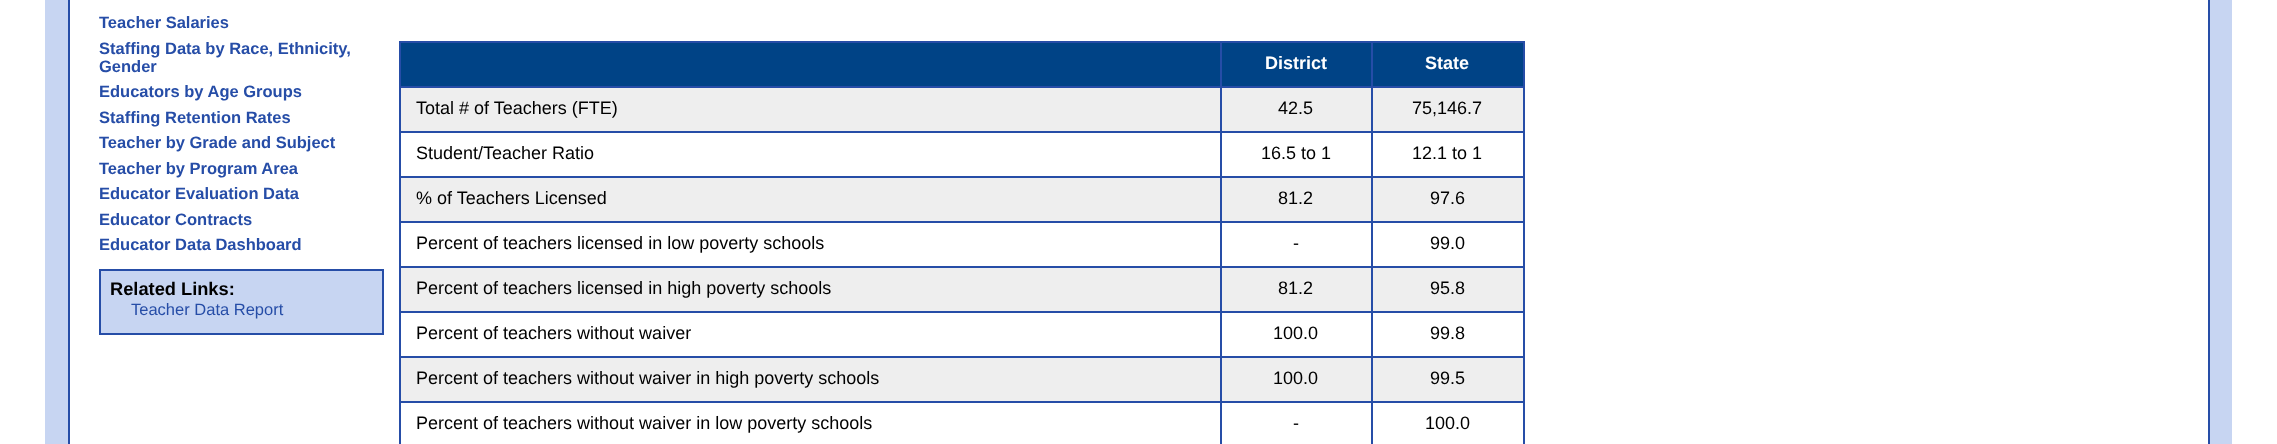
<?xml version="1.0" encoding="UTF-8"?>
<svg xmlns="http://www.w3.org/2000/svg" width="2277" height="444">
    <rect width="100%" height="100%" fill="#FFFFFF"/>
    <rect x="45" y="0" width="2187" height="444" fill="#C7D5F2"/>
    <rect x="69" y="-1" width="2140" height="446" fill="#FFFFFF" stroke="#264DA7" stroke-width="2"/>
    <text font-family="Liberation Sans" font-size="16.5" font-weight="700" fill="#264DA7">
        <tspan x="99" y="28">Teacher Salaries</tspan>
        <tspan x="99" y="54">Staffing Data by Race, Ethnicity,</tspan>
        <tspan x="99" y="72">Gender</tspan>
        <tspan x="99" y="97">Educators by Age Groups</tspan>
        <tspan x="99" y="123">Staffing Retention Rates</tspan>
        <tspan x="99" y="148">Teacher by Grade and Subject</tspan>
        <tspan x="99" y="174">Teacher by Program Area</tspan>
        <tspan x="99" y="199">Educator Evaluation Data</tspan>
        <tspan x="99" y="225">Educator Contracts</tspan>
        <tspan x="99" y="250">Educator Data Dashboard</tspan>
    </text>
    <rect x="100" y="270" width="283" height="64" fill="#C7D5F2" stroke="#264DA7" stroke-width="2"/>
    <text x="110" y="295" font-family="Liberation Sans" font-size="18.25" font-weight="700" fill="#000000">Related Links:</text>
    <text x="131" y="315" font-family="Liberation Sans" font-size="16.5" fill="#264DA7">Teacher Data Report</text>
    <rect x="399" y="41" width="1125" height="2" fill="#264DA7"/>
    <rect x="1523" y="41" width="2" height="403" fill="#264DA7"/>
    <rect x="399" y="41" width="2" height="403" fill="#264DA7"/>
    <rect x="401" y="43" width="1122" height="43" fill="#004386"/>
    <rect x="1371" y="86" width="153" height="2" fill="#264DA7"/>
    <rect x="401" y="88" width="1122" height="43" fill="#EEEEEE"/>
    <rect x="1371" y="131" width="153" height="2" fill="#264DA7"/>
    <rect x="1371" y="176" width="153" height="2" fill="#264DA7"/>
    <rect x="401" y="178" width="1122" height="43" fill="#EEEEEE"/>
    <rect x="1371" y="221" width="153" height="2" fill="#264DA7"/>
    <rect x="1371" y="266" width="153" height="2" fill="#264DA7"/>
    <rect x="401" y="268" width="1122" height="43" fill="#EEEEEE"/>
    <rect x="1371" y="311" width="153" height="2" fill="#264DA7"/>
    <rect x="1371" y="356" width="153" height="2" fill="#264DA7"/>
    <rect x="401" y="358" width="1122" height="43" fill="#EEEEEE"/>
    <rect x="1371" y="401" width="153" height="2" fill="#264DA7"/>
    <rect x="1371" y="401" width="2" height="43" fill="#264DA7"/>
    <rect x="1220" y="401" width="153" height="2" fill="#264DA7"/>
    <rect x="1371" y="356" width="2" height="46" fill="#264DA7"/>
    <rect x="1220" y="356" width="153" height="2" fill="#264DA7"/>
    <rect x="1371" y="311" width="2" height="46" fill="#264DA7"/>
    <rect x="1220" y="311" width="153" height="2" fill="#264DA7"/>
    <rect x="1371" y="266" width="2" height="46" fill="#264DA7"/>
    <rect x="1220" y="266" width="153" height="2" fill="#264DA7"/>
    <rect x="1371" y="221" width="2" height="46" fill="#264DA7"/>
    <rect x="1220" y="221" width="153" height="2" fill="#264DA7"/>
    <rect x="1371" y="176" width="2" height="46" fill="#264DA7"/>
    <rect x="1220" y="176" width="153" height="2" fill="#264DA7"/>
    <rect x="1371" y="131" width="2" height="46" fill="#264DA7"/>
    <rect x="1220" y="131" width="153" height="2" fill="#264DA7"/>
    <rect x="1371" y="86" width="2" height="46" fill="#264DA7"/>
    <rect x="1220" y="86" width="153" height="2" fill="#264DA7"/>
    <rect x="1220" y="401" width="2" height="43" fill="#264DA7"/>
    <rect x="399" y="401" width="822" height="2" fill="#264DA7"/>
    <rect x="1220" y="356" width="2" height="46" fill="#264DA7"/>
    <rect x="399" y="356" width="822" height="2" fill="#264DA7"/>
    <rect x="1220" y="311" width="2" height="46" fill="#264DA7"/>
    <rect x="399" y="311" width="822" height="2" fill="#264DA7"/>
    <rect x="1220" y="266" width="2" height="46" fill="#264DA7"/>
    <rect x="399" y="266" width="822" height="2" fill="#264DA7"/>
    <rect x="1220" y="221" width="2" height="46" fill="#264DA7"/>
    <rect x="399" y="221" width="822" height="2" fill="#264DA7"/>
    <rect x="1220" y="176" width="2" height="46" fill="#264DA7"/>
    <rect x="399" y="176" width="822" height="2" fill="#264DA7"/>
    <rect x="1220" y="131" width="2" height="46" fill="#264DA7"/>
    <rect x="399" y="131" width="822" height="2" fill="#264DA7"/>
    <rect x="1220" y="86" width="2" height="46" fill="#264DA7"/>
    <rect x="399" y="86" width="822" height="2" fill="#264DA7"/>
    <rect x="1220" y="41" width="2" height="46" fill="#264DA7"/>
    <text x="1265" y="69" font-family="Liberation Sans" font-size="18" font-weight="700" fill="#FFFFFF">District</text>
    <rect x="1371" y="41" width="2" height="46" fill="#264DA7"/>
    <text x="1425" y="69" font-family="Liberation Sans" font-size="18" font-weight="700" fill="#FFFFFF">State</text>
    <text x="416" y="114" font-family="Liberation Sans" font-size="18" fill="#000000">Total # of Teachers (FTE)</text>
    <text x="1278" y="114" font-family="Liberation Sans" font-size="18" fill="#000000">42.5</text>
    <text x="1412" y="114" font-family="Liberation Sans" font-size="18" fill="#000000">75,146.7</text>
    <text x="416" y="159" font-family="Liberation Sans" font-size="18" fill="#000000">Student/Teacher Ratio</text>
    <text x="1261" y="159" font-family="Liberation Sans" font-size="18" fill="#000000">16.5 to 1</text>
    <text x="1412" y="159" font-family="Liberation Sans" font-size="18" fill="#000000">12.1 to 1</text>
    <text x="416" y="204" font-family="Liberation Sans" font-size="18" fill="#000000">% of Teachers Licensed</text>
    <text x="1278" y="204" font-family="Liberation Sans" font-size="18" fill="#000000">81.2</text>
    <text x="1430" y="204" font-family="Liberation Sans" font-size="18" fill="#000000">97.6</text>
    <text x="416" y="249" font-family="Liberation Sans" font-size="18" fill="#000000">Percent of teachers licensed in low poverty schools</text>
    <text x="1293" y="249" font-family="Liberation Sans" font-size="18" fill="#000000">-</text>
    <text x="1430" y="249" font-family="Liberation Sans" font-size="18" fill="#000000">99.0</text>
    <text x="416" y="294" font-family="Liberation Sans" font-size="18" fill="#000000">Percent of teachers licensed in high poverty schools</text>
    <text x="1278" y="294" font-family="Liberation Sans" font-size="18" fill="#000000">81.2</text>
    <text x="1430" y="294" font-family="Liberation Sans" font-size="18" fill="#000000">95.8</text>
    <text x="416" y="339" font-family="Liberation Sans" font-size="18" fill="#000000">Percent of teachers without waiver</text>
    <text x="1273" y="339" font-family="Liberation Sans" font-size="18" fill="#000000">100.0</text>
    <text x="1430" y="339" font-family="Liberation Sans" font-size="18" fill="#000000">99.8</text>
    <text x="416" y="384" font-family="Liberation Sans" font-size="18" fill="#000000">Percent of teachers without waiver in high poverty schools</text>
    <text x="1273" y="384" font-family="Liberation Sans" font-size="18" fill="#000000">100.0</text>
    <text x="1430" y="384" font-family="Liberation Sans" font-size="18" fill="#000000">99.5</text>
    <text x="416" y="429" font-family="Liberation Sans" font-size="18" fill="#000000">Percent of teachers without waiver in low poverty schools</text>
    <text x="1293" y="429" font-family="Liberation Sans" font-size="18" fill="#000000">-</text>
    <text x="1425" y="429" font-family="Liberation Sans" font-size="18" fill="#000000">100.0</text>
</svg>
